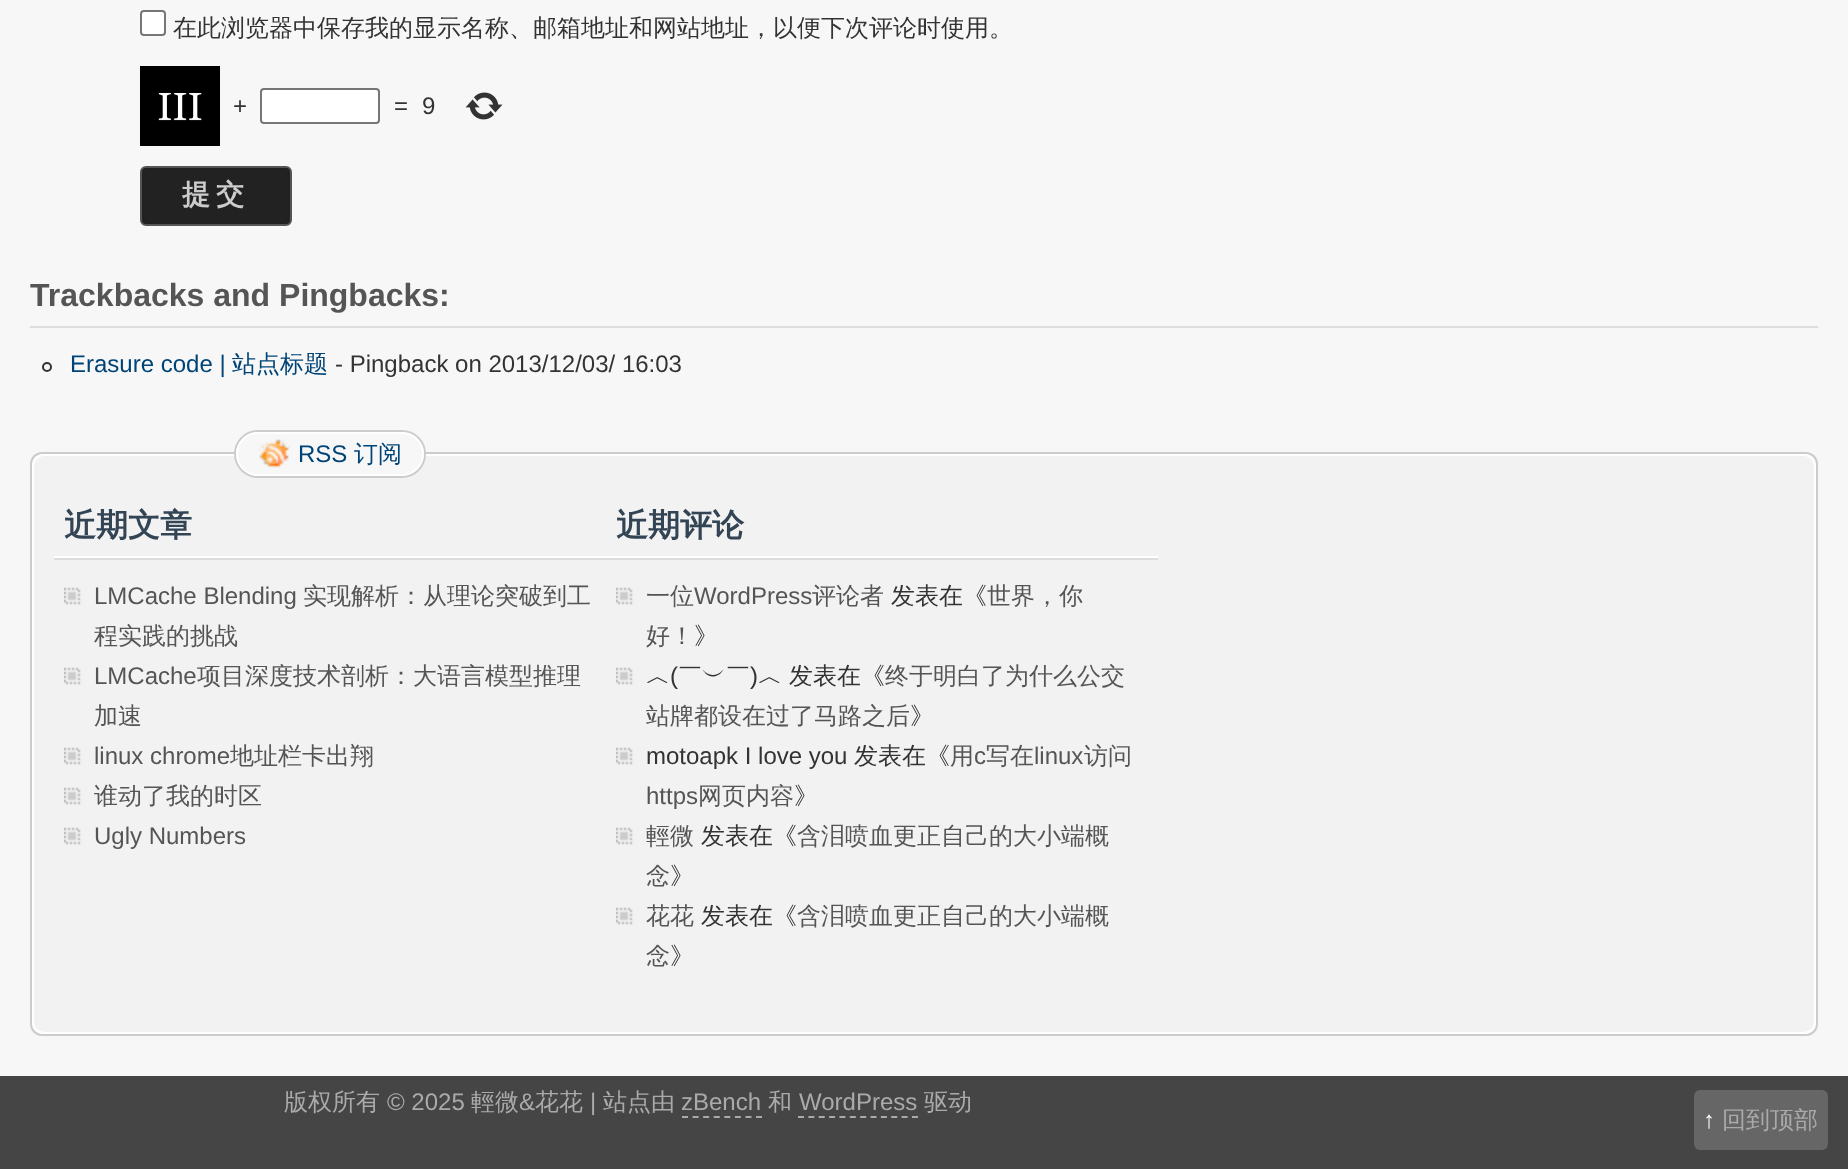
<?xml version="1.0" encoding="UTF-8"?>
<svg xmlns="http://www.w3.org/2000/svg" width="1848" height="1169">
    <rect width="100%" height="100%" fill="#F7F7F7"/>
    <rect x="141" y="11" width="24" height="24" rx="3" fill="#FFFFFF" stroke="#767676" stroke-width="2"/>
    <text x="173" y="36" font-family="WenQuanYi Zen Hei" font-size="24" font-weight="500" fill="#333333">在此浏览器中保存我的显示名称、邮箱地址和网站地址，以便下次评论时使用。</text>
    <image x="140" y="66" width="80" height="80" href="img_01.png"/>
    <text x="233" y="114" font-family="Liberation Sans" font-size="24" fill="#333333">+</text>
    <rect x="261" y="89" width="118" height="34" rx="3" fill="#FFFFFF" stroke="#767676" stroke-width="2"/>
    <text x="394" y="114" font-family="Liberation Sans" font-size="24" fill="#333333">=</text>
    <text x="422" y="114" font-family="Liberation Sans" font-size="24" fill="#333333">9</text>
    <image x="465" y="92" width="38" height="28" href="img_02.png"/>
    <rect x="141" y="167" width="150" height="58" rx="5" fill="#222222" stroke="#555555" stroke-width="2"/>
    <text x="182" y="204" font-family="WenQuanYi Zen Hei" font-size="28" font-weight="700" letter-spacing="6" fill="#CCCCCC">提交</text>
    <rect x="30" y="326" width="1788" height="2" fill="#DDDDDD"/>
    <text x="30" y="306" font-family="Liberation Sans" font-size="32" font-weight="700" fill="#555555">Trackbacks and Pingbacks:</text>
    <circle cx="47" cy="367" r="4" fill="none" stroke="#333333" stroke-width="2"/>
    <text x="70" y="372" font-family="Liberation Sans" font-size="24" fill="#004477">Erasure code |</text>
    <text x="232" y="372" font-family="WenQuanYi Zen Hei" font-size="24" font-weight="500" fill="#004477">站点标题</text>
    <text x="335" y="372" font-family="Liberation Sans" font-size="24" fill="#333333">- Pingback on 2013/12/03/ 16:03</text>
    <rect x="31" y="453" width="1786" height="582" rx="11" fill="#F2F2F2" stroke="#CCCCCC" stroke-width="2"/>
    <rect x="33" y="455" width="1782" height="578" rx="11" fill="none" stroke="#FFFFFF" stroke-width="2"/>
    <rect x="235" y="431" width="190" height="46" rx="23" fill="none" stroke="#CCCCCC" stroke-width="2"/>
    <rect x="237" y="433" width="186" height="42" rx="21" fill="#F7F7F7" stroke="#FFFFFF" stroke-width="2"/>
    <image x="258" y="439" width="32" height="29" href="img_03.png"/>
    <text x="298" y="462" font-family="Liberation Sans" font-size="24" fill="#004477">RSS</text>
    <text x="354" y="462" font-family="WenQuanYi Zen Hei" font-size="24" font-weight="500" fill="#004477">订阅</text>
    <rect x="54" y="556" width="1104" height="2" fill="#FFFFFF"/>
    <text x="64" y="536" font-family="WenQuanYi Zen Hei" font-size="32" font-weight="700" fill="#334455">近期文章</text>
    <rect x="54" y="558" width="1104" height="2" fill="#DDDDDD"/>
    <image x="64" y="587" width="17" height="18" href="img_04.png"/>
    <text x="94" y="604" font-family="Liberation Sans" font-size="24" fill="#555555">LMCache Blending</text>
    <text x="303" y="604" font-family="WenQuanYi Zen Hei" font-size="24" font-weight="500" fill="#555555">实现解析：从理论突破到工</text>
    <text x="94" y="644" font-family="WenQuanYi Zen Hei" font-size="24" font-weight="500" fill="#555555">程实践的挑战</text>
    <image x="64" y="667" width="17" height="18" href="img_04.png"/>
    <text x="94" y="684" font-family="Liberation Sans" font-size="24" fill="#555555">LMCache</text>
    <text x="197" y="684" font-family="WenQuanYi Zen Hei" font-size="24" font-weight="500" fill="#555555">项目深度技术剖析：大语言模型推理</text>
    <text x="94" y="724" font-family="WenQuanYi Zen Hei" font-size="24" font-weight="500" fill="#555555">加速</text>
    <image x="64" y="747" width="17" height="18" href="img_04.png"/>
    <text x="94" y="764" font-family="Liberation Sans" font-size="24" fill="#555555">linux chrome</text>
    <text x="230" y="764" font-family="WenQuanYi Zen Hei" font-size="24" font-weight="500" fill="#555555">地址栏卡出翔</text>
    <image x="64" y="787" width="17" height="18" href="img_04.png"/>
    <text x="94" y="804" font-family="WenQuanYi Zen Hei" font-size="24" font-weight="500" fill="#555555">谁动了我的时区</text>
    <image x="64" y="827" width="17" height="18" href="img_04.png"/>
    <text x="94" y="844" font-family="Liberation Sans" font-size="24" fill="#555555">Ugly Numbers</text>
    <text x="616" y="536" font-family="WenQuanYi Zen Hei" font-size="32" font-weight="700" fill="#334455">近期评论</text>
    <image x="616" y="587" width="17" height="18" href="img_04.png"/>
    <text x="646" y="604" font-family="WenQuanYi Zen Hei" font-size="24" font-weight="500" fill="#555555">一位</text>
    <text x="694" y="604" font-family="Liberation Sans" font-size="24" fill="#555555">WordPress</text>
    <text x="812" y="604" font-family="WenQuanYi Zen Hei" font-size="24" font-weight="500" fill="#555555">评论者</text>
    <text x="891" y="604" font-family="WenQuanYi Zen Hei" font-size="24" font-weight="500" fill="#333333">发表在《</text>
    <text x="987" y="604" font-family="WenQuanYi Zen Hei" font-size="24" font-weight="500" fill="#555555">世界，你</text>
    <text x="646" y="644" font-family="WenQuanYi Zen Hei" font-size="24" font-weight="500" fill="#555555">好！</text>
    <text x="694" y="644" font-family="WenQuanYi Zen Hei" font-size="24" font-weight="500" fill="#333333">》</text>
    <image x="616" y="667" width="17" height="18" href="img_04.png"/>
    <text x="646" y="684" font-family="WenQuanYi Zen Hei" font-size="24" font-weight="500" fill="#333333">︿</text>
    <text x="670" y="684" font-family="Liberation Sans" font-size="24" fill="#333333">(</text>
    <text x="678" y="684" font-family="WenQuanYi Zen Hei" font-size="24" font-weight="500" fill="#333333">￣︶￣</text>
    <text x="750" y="684" font-family="Liberation Sans" font-size="24" fill="#333333">)</text>
    <text x="758" y="684" font-family="WenQuanYi Zen Hei" font-size="24" font-weight="500" fill="#333333">︿</text>
    <text x="789" y="684" font-family="WenQuanYi Zen Hei" font-size="24" font-weight="500" fill="#333333">发表在《</text>
    <text x="885" y="684" font-family="WenQuanYi Zen Hei" font-size="24" font-weight="500" fill="#555555">终于明白了为什么公交</text>
    <text x="646" y="724" font-family="WenQuanYi Zen Hei" font-size="24" font-weight="500" fill="#555555">站牌都设在过了马路之后</text>
    <text x="910" y="724" font-family="WenQuanYi Zen Hei" font-size="24" font-weight="500" fill="#333333">》</text>
    <image x="616" y="747" width="17" height="18" href="img_04.png"/>
    <text x="646" y="764" font-family="Liberation Sans" font-size="24" fill="#333333">motoapk I love you</text>
    <text x="854" y="764" font-family="WenQuanYi Zen Hei" font-size="24" font-weight="500" fill="#333333">发表在《</text>
    <text x="950" y="764" font-family="WenQuanYi Zen Hei" font-size="24" font-weight="500" fill="#555555">用</text>
    <text x="974" y="764" font-family="Liberation Sans" font-size="24" fill="#555555">c</text>
    <text x="986" y="764" font-family="WenQuanYi Zen Hei" font-size="24" font-weight="500" fill="#555555">写在</text>
    <text x="1034" y="764" font-family="Liberation Sans" font-size="24" fill="#555555">linux</text>
    <text x="1084" y="764" font-family="WenQuanYi Zen Hei" font-size="24" font-weight="500" fill="#555555">访问</text>
    <text x="646" y="804" font-family="Liberation Sans" font-size="24" fill="#555555">https</text>
    <text x="698" y="804" font-family="WenQuanYi Zen Hei" font-size="24" font-weight="500" fill="#555555">网页内容</text>
    <text x="794" y="804" font-family="WenQuanYi Zen Hei" font-size="24" font-weight="500" fill="#333333">》</text>
    <image x="616" y="827" width="17" height="18" href="img_04.png"/>
    <text x="646" y="844" font-family="WenQuanYi Zen Hei" font-size="24" font-weight="500" fill="#555555">輕微</text>
    <text x="701" y="844" font-family="WenQuanYi Zen Hei" font-size="24" font-weight="500" fill="#333333">发表在《</text>
    <text x="797" y="844" font-family="WenQuanYi Zen Hei" font-size="24" font-weight="500" fill="#555555">含泪喷血更正自己的大小端概</text>
    <text x="646" y="884" font-family="WenQuanYi Zen Hei" font-size="24" font-weight="500" fill="#555555">念</text>
    <text x="670" y="884" font-family="WenQuanYi Zen Hei" font-size="24" font-weight="500" fill="#333333">》</text>
    <image x="616" y="907" width="17" height="18" href="img_04.png"/>
    <text x="646" y="924" font-family="WenQuanYi Zen Hei" font-size="24" font-weight="500" fill="#555555">花花</text>
    <text x="701" y="924" font-family="WenQuanYi Zen Hei" font-size="24" font-weight="500" fill="#333333">发表在《</text>
    <text x="797" y="924" font-family="WenQuanYi Zen Hei" font-size="24" font-weight="500" fill="#555555">含泪喷血更正自己的大小端概</text>
    <text x="646" y="964" font-family="WenQuanYi Zen Hei" font-size="24" font-weight="500" fill="#555555">念</text>
    <text x="670" y="964" font-family="WenQuanYi Zen Hei" font-size="24" font-weight="500" fill="#333333">》</text>
    <rect x="0" y="1076" width="1848" height="93" fill="#454546"/>
    <text x="284" y="1110" font-family="WenQuanYi Zen Hei" font-size="24" font-weight="500" fill="#AAAAAA">版权所有</text>
    <text x="387" y="1110" font-family="Liberation Sans" font-size="24" fill="#AAAAAA">© 2025</text>
    <text x="471" y="1110" font-family="WenQuanYi Zen Hei" font-size="24" font-weight="500" fill="#AAAAAA">輕微</text>
    <text x="519" y="1110" font-family="Liberation Sans" font-size="24" fill="#AAAAAA">&amp;</text>
    <text x="535" y="1110" font-family="WenQuanYi Zen Hei" font-size="24" font-weight="500" fill="#AAAAAA">花花</text>
    <text x="590" y="1110" font-family="Liberation Sans" font-size="24" fill="#AAAAAA">|</text>
    <text x="603" y="1110" font-family="WenQuanYi Zen Hei" font-size="24" font-weight="500" fill="#AAAAAA">站点由</text>
    <text x="681" y="1110" font-family="Liberation Sans" font-size="24" fill="#AAAAAA">zBench</text>
    <path d="M 682 1117 H 762" fill="none" stroke="#AAAAAA" stroke-width="2" stroke-dasharray="6 4.58"/>
    <text x="768" y="1110" font-family="WenQuanYi Zen Hei" font-size="24" font-weight="500" fill="#AAAAAA">和</text>
    <text x="799" y="1110" font-family="Liberation Sans" font-size="24" fill="#AAAAAA">WordPress</text>
    <path d="M 798 1117 H 918" fill="none" stroke="#AAAAAA" stroke-width="2" stroke-dasharray="6 4.36"/>
    <text x="924" y="1110" font-family="WenQuanYi Zen Hei" font-size="24" font-weight="500" fill="#AAAAAA">驱动</text>
    <rect x="1694" y="1090" width="134" height="60" rx="6" fill="#666666"/>
    <text x="1703" y="1128" font-family="Liberation Sans" font-size="24" font-weight="700" fill="#FAFAFA">↑</text>
    <text x="1722" y="1128" font-family="WenQuanYi Zen Hei" font-size="24" font-weight="500" fill="#AAAAAA">回到顶部</text>
</svg>
